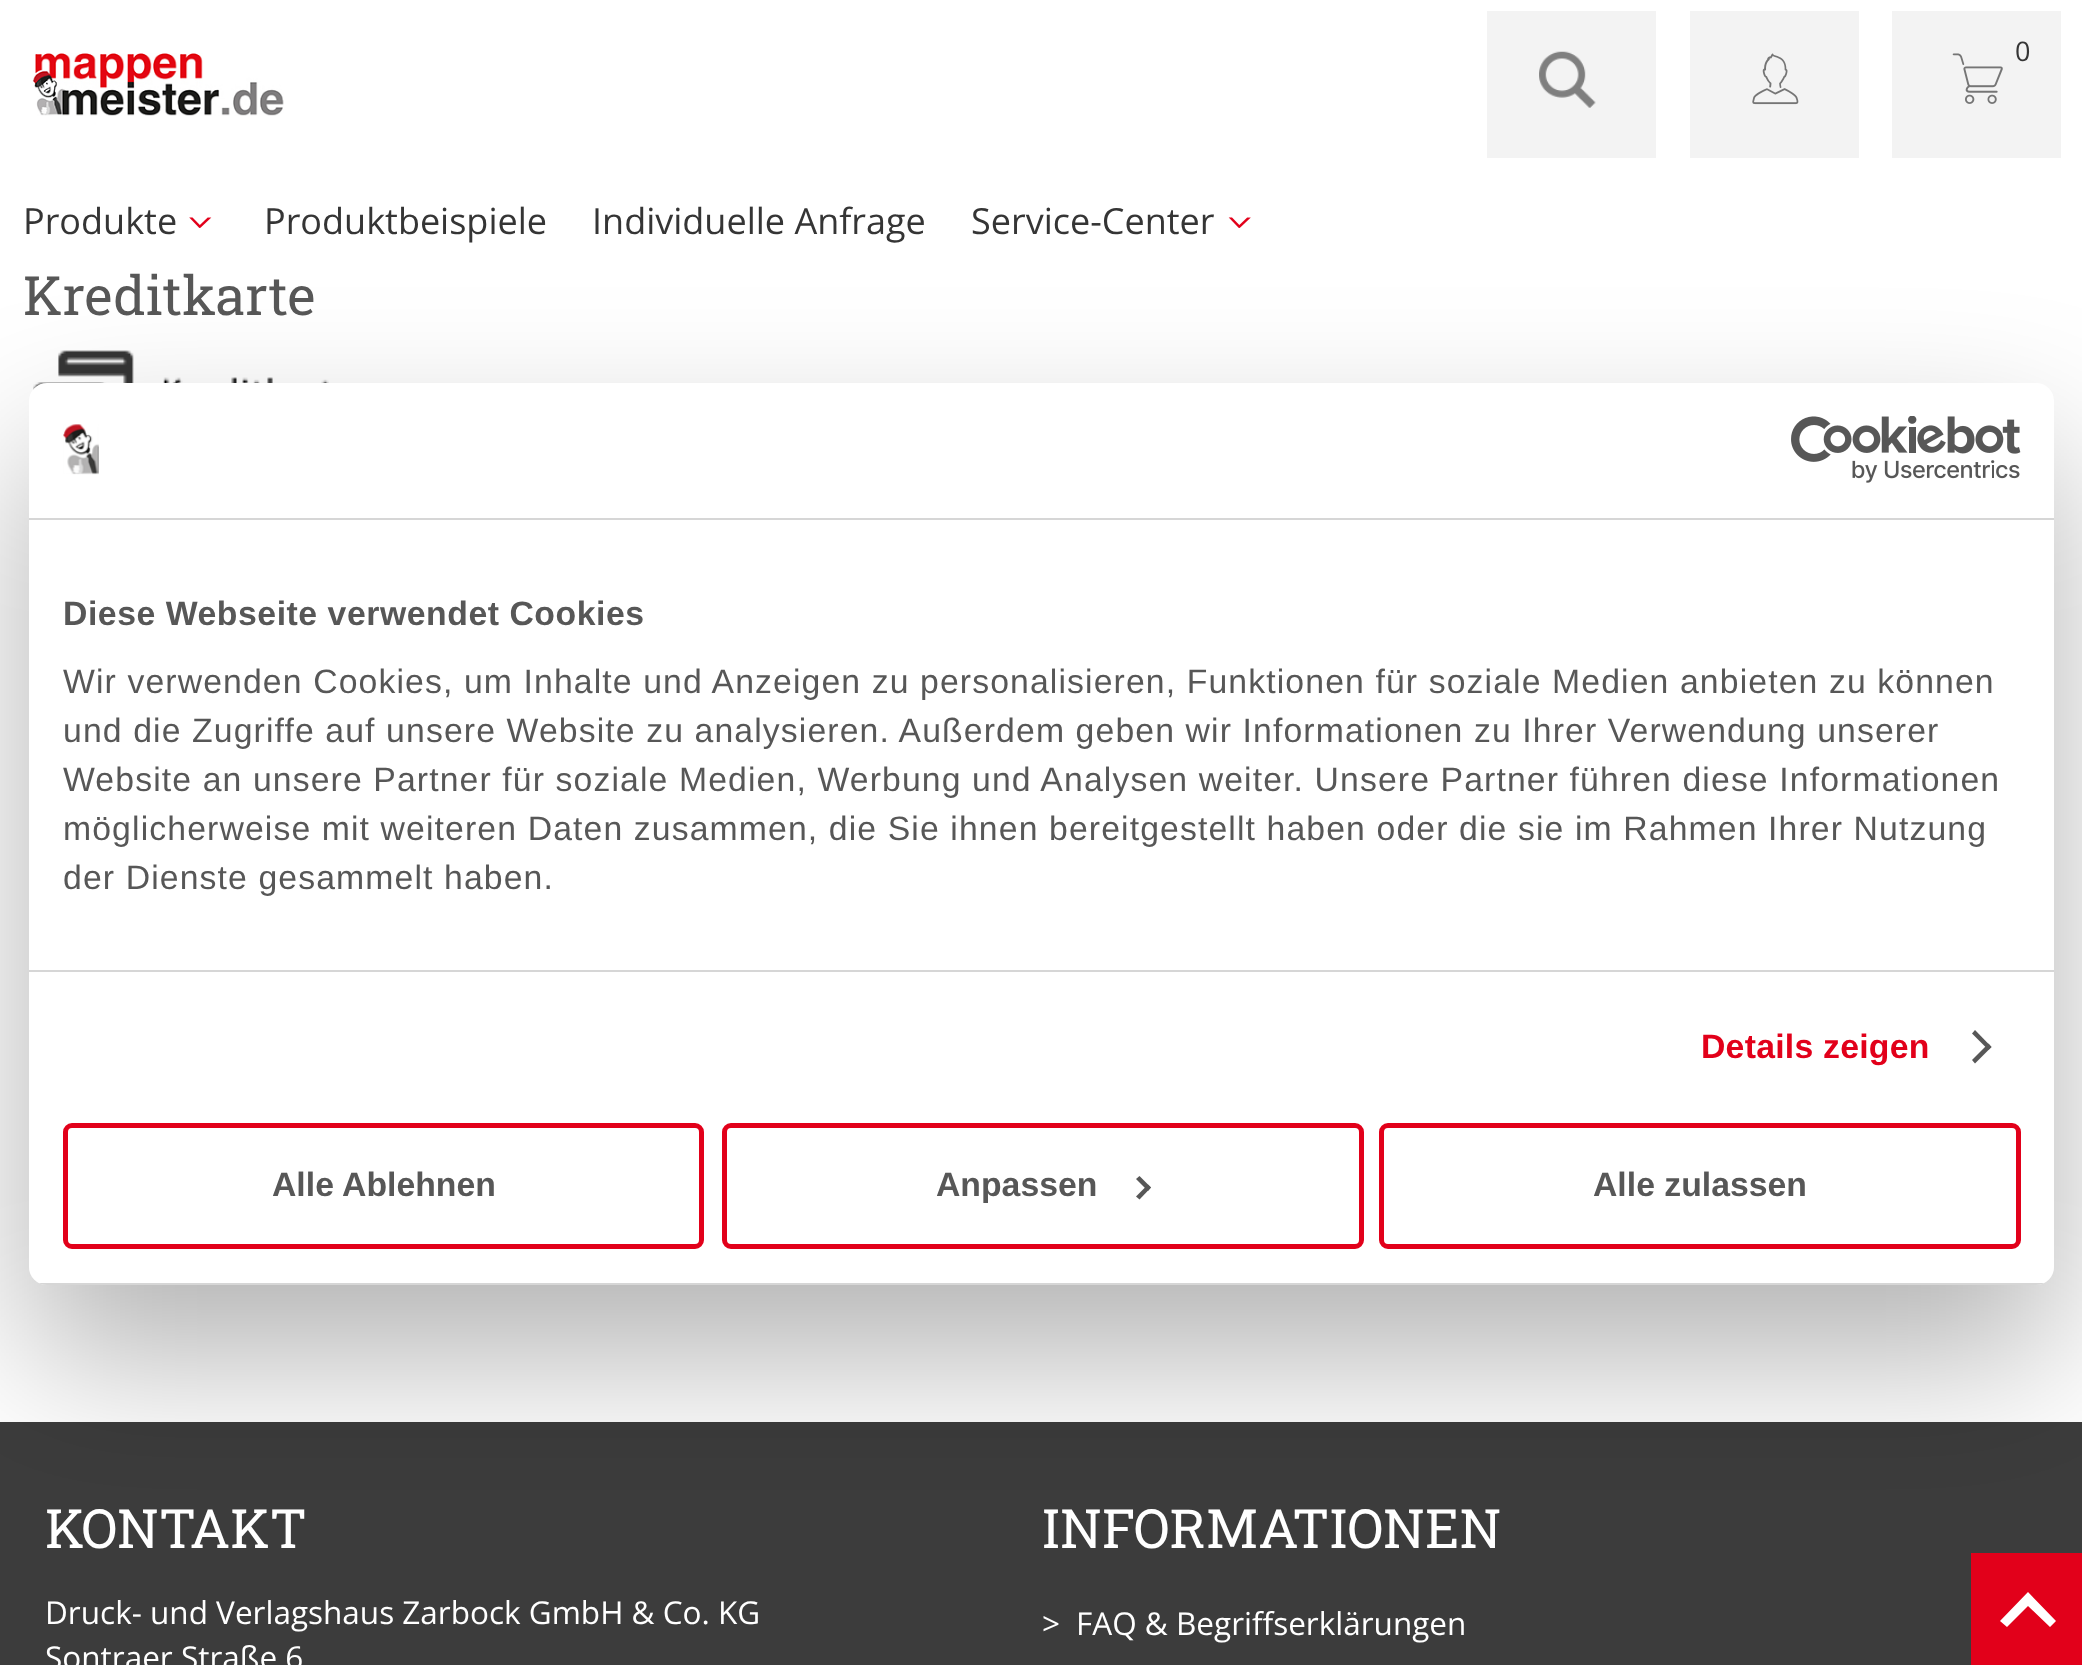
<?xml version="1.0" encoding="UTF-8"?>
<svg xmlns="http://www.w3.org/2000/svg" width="2082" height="1665">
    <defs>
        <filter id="blur1" x="-50%" y="-200%" width="200%" height="500%"><feGaussianBlur stdDeviation="76.5"/></filter>
        <clipPath id="clip1"><rect x="29" y="383" width="2025" height="902" rx="18"/></clipPath>
    </defs>
    <rect width="100%" height="100%" fill="#FFFFFF"/>
    <image x="32" y="53" width="252" height="63" href="img_01.png"/>
    <rect x="1487" y="11" width="169" height="147" fill="#F3F3F3"/>
    <image x="1539" y="51" width="57" height="57" href="img_02.png"/>
    <rect x="1690" y="11" width="169" height="147" fill="#F3F3F3"/>
    <image x="1752" y="53" width="47" height="52" href="img_03.png"/>
    <rect x="1892" y="11" width="169" height="147" fill="#F3F3F3"/>
    <image x="1952" y="53" width="51" height="51" href="img_04.png"/>
    <text x="2015" y="61" font-family="Open Sans" font-size="27" fill="#353535">0</text>
    <text x="23" y="234" font-family="Open Sans" font-size="36" fill="#353535">Produkte</text>
    <image x="189" y="217" width="23" height="11" href="img_05.png"/>
    <text x="264" y="234" font-family="Open Sans" font-size="36" fill="#353535">Produktbeispiele</text>
    <text x="592" y="234" font-family="Open Sans" font-size="36" fill="#353535">Individuelle Anfrage</text>
    <text x="971" y="234" font-family="Open Sans" font-size="36" fill="#353535">Service-Center</text>
    <image x="1228" y="217" width="23" height="11" href="img_06.png"/>
    <text x="23" y="315" font-family="Roboto Slab" font-size="54" fill="#575757">Kreditkarte</text>
    <image x="33" y="350" width="296" height="40" href="img_07.png"/>
    <rect x="0" y="1422" width="2082" height="243" fill="#3C3C3C"/>
    <rect x="1971" y="1553" width="111" height="112" fill="#E2001A"/>
    <rect x="29" y="455" width="2025" height="902" rx="18" fill="#000000" fill-opacity="0.3" filter="url(#blur1)"/>
    <rect x="29" y="383" width="2025" height="902" rx="18" fill="#FFFFFF"/>
    <rect x="29" y="518" width="2025" height="2" fill="#D6D6D6"/>
    <image x="63" y="424" width="36" height="51" href="img_08.png"/>
    <image x="1791" y="416" width="230" height="67" href="img_09.png"/>
    <rect x="29" y="970" width="2025" height="2" fill="#D6D6D6"/>
    <text x="63" y="625" font-family="Liberation Sans" font-size="33.75" font-weight="700" letter-spacing="0.55" fill="#575757">Diese Webseite verwendet Cookies</text>
    <text font-family="Liberation Sans" font-size="33.75" letter-spacing="1.12" fill="#575757">
        <tspan x="63" y="693">Wir verwenden Cookies, um Inhalte und Anzeigen zu personalisieren, Funktionen für soziale Medien anbieten zu können</tspan>
        <tspan x="63" y="742">und die Zugriffe auf unsere Website zu analysieren. Außerdem geben wir Informationen zu Ihrer Verwendung unserer</tspan>
        <tspan x="63" y="791">Website an unsere Partner für soziale Medien, Werbung und Analysen weiter. Unsere Partner führen diese Informationen</tspan>
        <tspan x="63" y="840">möglicherweise mit weiteren Daten zusammen, die Sie ihnen bereitgestellt haben oder die sie im Rahmen Ihrer Nutzung</tspan>
        <tspan x="63" y="889">der Dienste gesammelt haben.</tspan>
    </text>
    <text x="1701" y="1058" font-family="Liberation Sans" font-size="33.75" font-weight="700" letter-spacing="0.25" fill="#E2001A">Details zeigen</text>
    <path d="M 1975 1030 L 1991.5 1047 L 1988.5 1050 L 1972 1033.5 Z" fill="#575757"/>
    <path d="M 1988.5 1043.5 L 1991.5 1047 L 1975 1063.5 L 1972 1060 Z" fill="#575757"/>
    <g clip-path="url(#clip1)">
        <rect x="39" y="1283" width="2005" height="2" fill="#D6D6D6"/>
    </g>
    <rect x="65.5" y="1125.5" width="636" height="121" rx="6.5" fill="none" stroke="#E2001A" stroke-width="5"/>
    <text x="272" y="1196" font-family="Liberation Sans" font-size="33.75" font-weight="700" fill="#575757">Alle Ablehnen</text>
    <rect x="724.5" y="1125.5" width="637" height="121" rx="6.5" fill="none" stroke="#E2001A" stroke-width="5"/>
    <text x="936" y="1196" font-family="Liberation Sans" font-size="33.75" font-weight="700" fill="#575757">Anpassen</text>
    <path d="M 1139.5 1176 L 1151 1187.5 L 1148 1191 L 1136 1179 Z" fill="#575757"/>
    <path d="M 1148 1184.5 L 1151 1187.5 L 1139.5 1199.5 L 1136 1196.5 Z" fill="#575757"/>
    <rect x="1381.5" y="1125.5" width="637" height="121" rx="6.5" fill="none" stroke="#E2001A" stroke-width="5"/>
    <text x="1593" y="1196" font-family="Liberation Sans" font-size="33.75" font-weight="700" fill="#575757">Alle zulassen</text>
    <text x="45" y="1548" font-family="Roboto Slab" font-size="54" fill="#FFFFFF">KONTAKT</text>
    <text font-family="Open Sans" font-size="31.5" fill="#FFFFFF">
        <tspan x="45" y="1624">Druck- und Verlagshaus Zarbock GmbH &amp; Co. KG</tspan>
        <tspan x="45" y="1669">Sontraer Straße 6</tspan>
    </text>
    <text x="1042" y="1548" font-family="Roboto Slab" font-size="54" fill="#FFFFFF">INFORMATIONEN</text>
    <text x="1042" y="1635" font-family="Open Sans" font-size="31.5" fill="#FFFFFF">&gt;</text>
    <text x="1076" y="1635" font-family="Open Sans" font-size="31.5" fill="#FFFFFF">FAQ &amp; Begriffserklärungen</text>
    <path d="M 2056 1621 L 2050 1627 L 2028 1606 L 2007 1627 L 2000 1621 L 2028 1592 Z" fill="#FFFFFF"/>
</svg>
